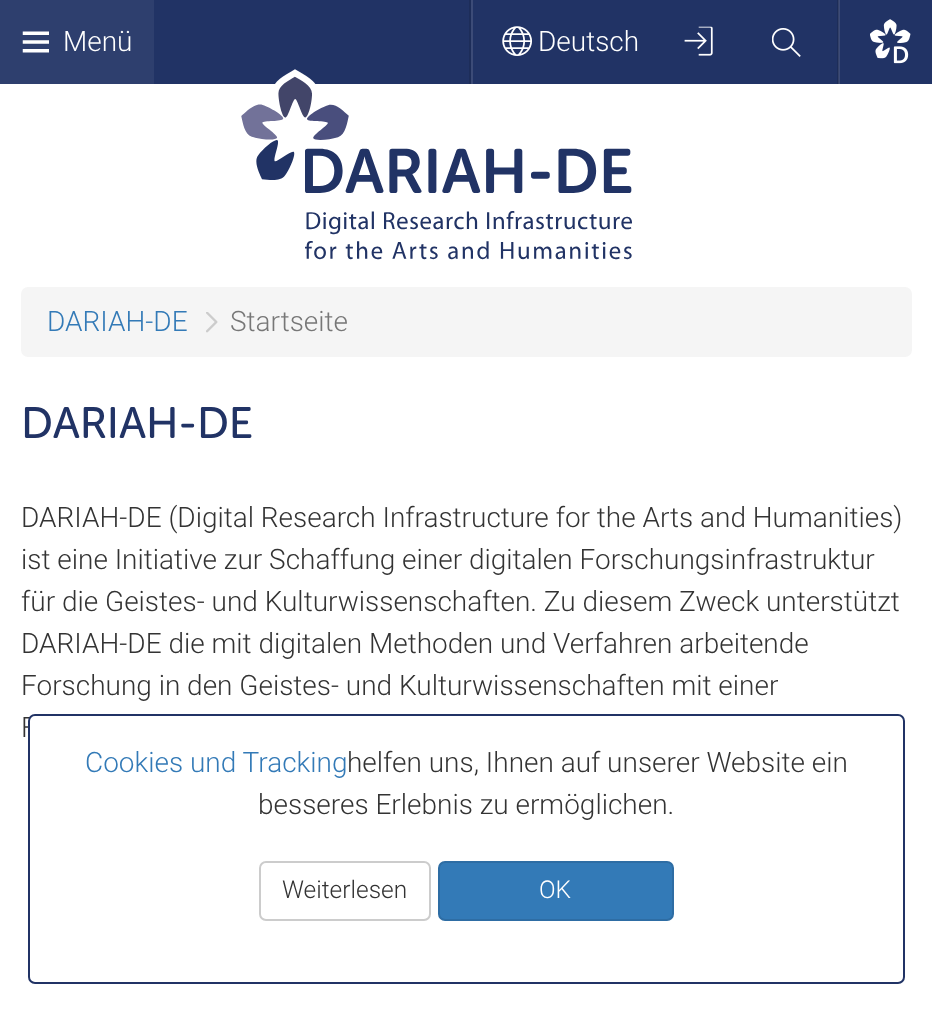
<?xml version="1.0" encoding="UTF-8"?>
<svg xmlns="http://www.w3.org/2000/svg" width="932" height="1010">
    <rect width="100%" height="100%" fill="#FFFFFF"/>
    <rect x="154" y="0" width="778" height="84" fill="#213365"/>
    <rect x="837" y="0" width="1" height="84" fill="#1D2D59"/>
    <rect x="0" y="0" width="154" height="84" fill="#2E3F6E"/>
    <image x="22" y="31" width="27" height="22" href="img_01.png"/>
    <text x="63" y="51" font-family="Roboto" font-size="28" font-weight="300" fill="#FFFFFF">Menü</text>
    <rect x="471" y="0" width="2" height="84" fill="#3C4B77"/>
    <rect x="469" y="0" width="2" height="84" fill="#1D2D59"/>
    <image x="502" y="26" width="30" height="30" href="img_02.png"/>
    <text x="538" y="51" font-family="Roboto" font-size="28" font-weight="300" fill="#FFFFFF">Deutsch</text>
    <image x="684" y="26" width="29" height="30" href="img_03.png"/>
    <image x="772" y="28" width="29" height="29" href="img_04.png"/>
    <rect x="839" y="0" width="1" height="84" fill="#3C4B77"/>
    <rect x="838" y="0" width="1" height="84" fill="#354269"/>
    <image x="870" y="19" width="41" height="45" href="img_05.png"/>
    <image x="275" y="69" width="41" height="15" href="img_06.png"/>
    <image x="241" y="76" width="391" height="184" href="img_07.png"/>
    <rect x="21" y="287" width="891" height="70" rx="7" fill="#F5F5F5"/>
    <text x="47" y="331" font-family="Roboto" font-size="28" font-weight="300" fill="#337AB7">DARIAH-DE</text>
    <image x="206" y="312" width="12" height="21" href="img_08.png"/>
    <text x="230" y="331" font-family="Roboto" font-size="28" font-weight="300" fill="#777777">Startseite</text>
    <text x="21" y="438" font-family="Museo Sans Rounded" font-size="43.75" fill="#213365">DARIAH-DE</text>
    <text font-family="Roboto" font-size="28" font-weight="300" fill="#333333">
        <tspan x="21" y="527">DARIAH-DE (Digital Research Infrastructure for the Arts and Humanities)</tspan>
        <tspan x="21" y="569">ist eine Initiative zur Schaffung einer digitalen Forschungsinfrastruktur</tspan>
        <tspan x="21" y="611">für die Geistes- und Kulturwissenschaften. Zu diesem Zweck unterstützt</tspan>
        <tspan x="21" y="653">DARIAH-DE die mit digitalen Methoden und Verfahren arbeitende</tspan>
        <tspan x="21" y="695">Forschung in den Geistes- und Kulturwissenschaften mit einer</tspan>
        <tspan x="21" y="737">F</tspan>
    </text>
    <rect x="29" y="715" width="875" height="268" rx="6" fill="#FFFFFF" stroke="#213365" stroke-width="2"/>
    <text x="85" y="772" font-family="Roboto" font-size="28" font-weight="300" fill="#337AB7">Cookies und Tracking</text>
    <text x="347" y="772" font-family="Roboto" font-size="28" font-weight="300" fill="#333333">helfen uns, Ihnen auf unserer Website ein</text>
    <text x="258" y="814" font-family="Roboto" font-size="28" font-weight="300" fill="#333333">besseres Erlebnis zu ermöglichen.</text>
    <rect x="260" y="862" width="170" height="58" rx="6" fill="none" stroke="#CCCCCC" stroke-width="2"/>
    <text x="282" y="898" font-family="Roboto" font-size="24.5" font-weight="300" fill="#333333">Weiterlesen</text>
    <rect x="439" y="862" width="234" height="58" rx="6" fill="#337AB7" stroke="#2E6DA4" stroke-width="2"/>
    <text x="539" y="898" font-family="Roboto" font-size="24.5" font-weight="300" fill="#FFFFFF">OK</text>
</svg>
